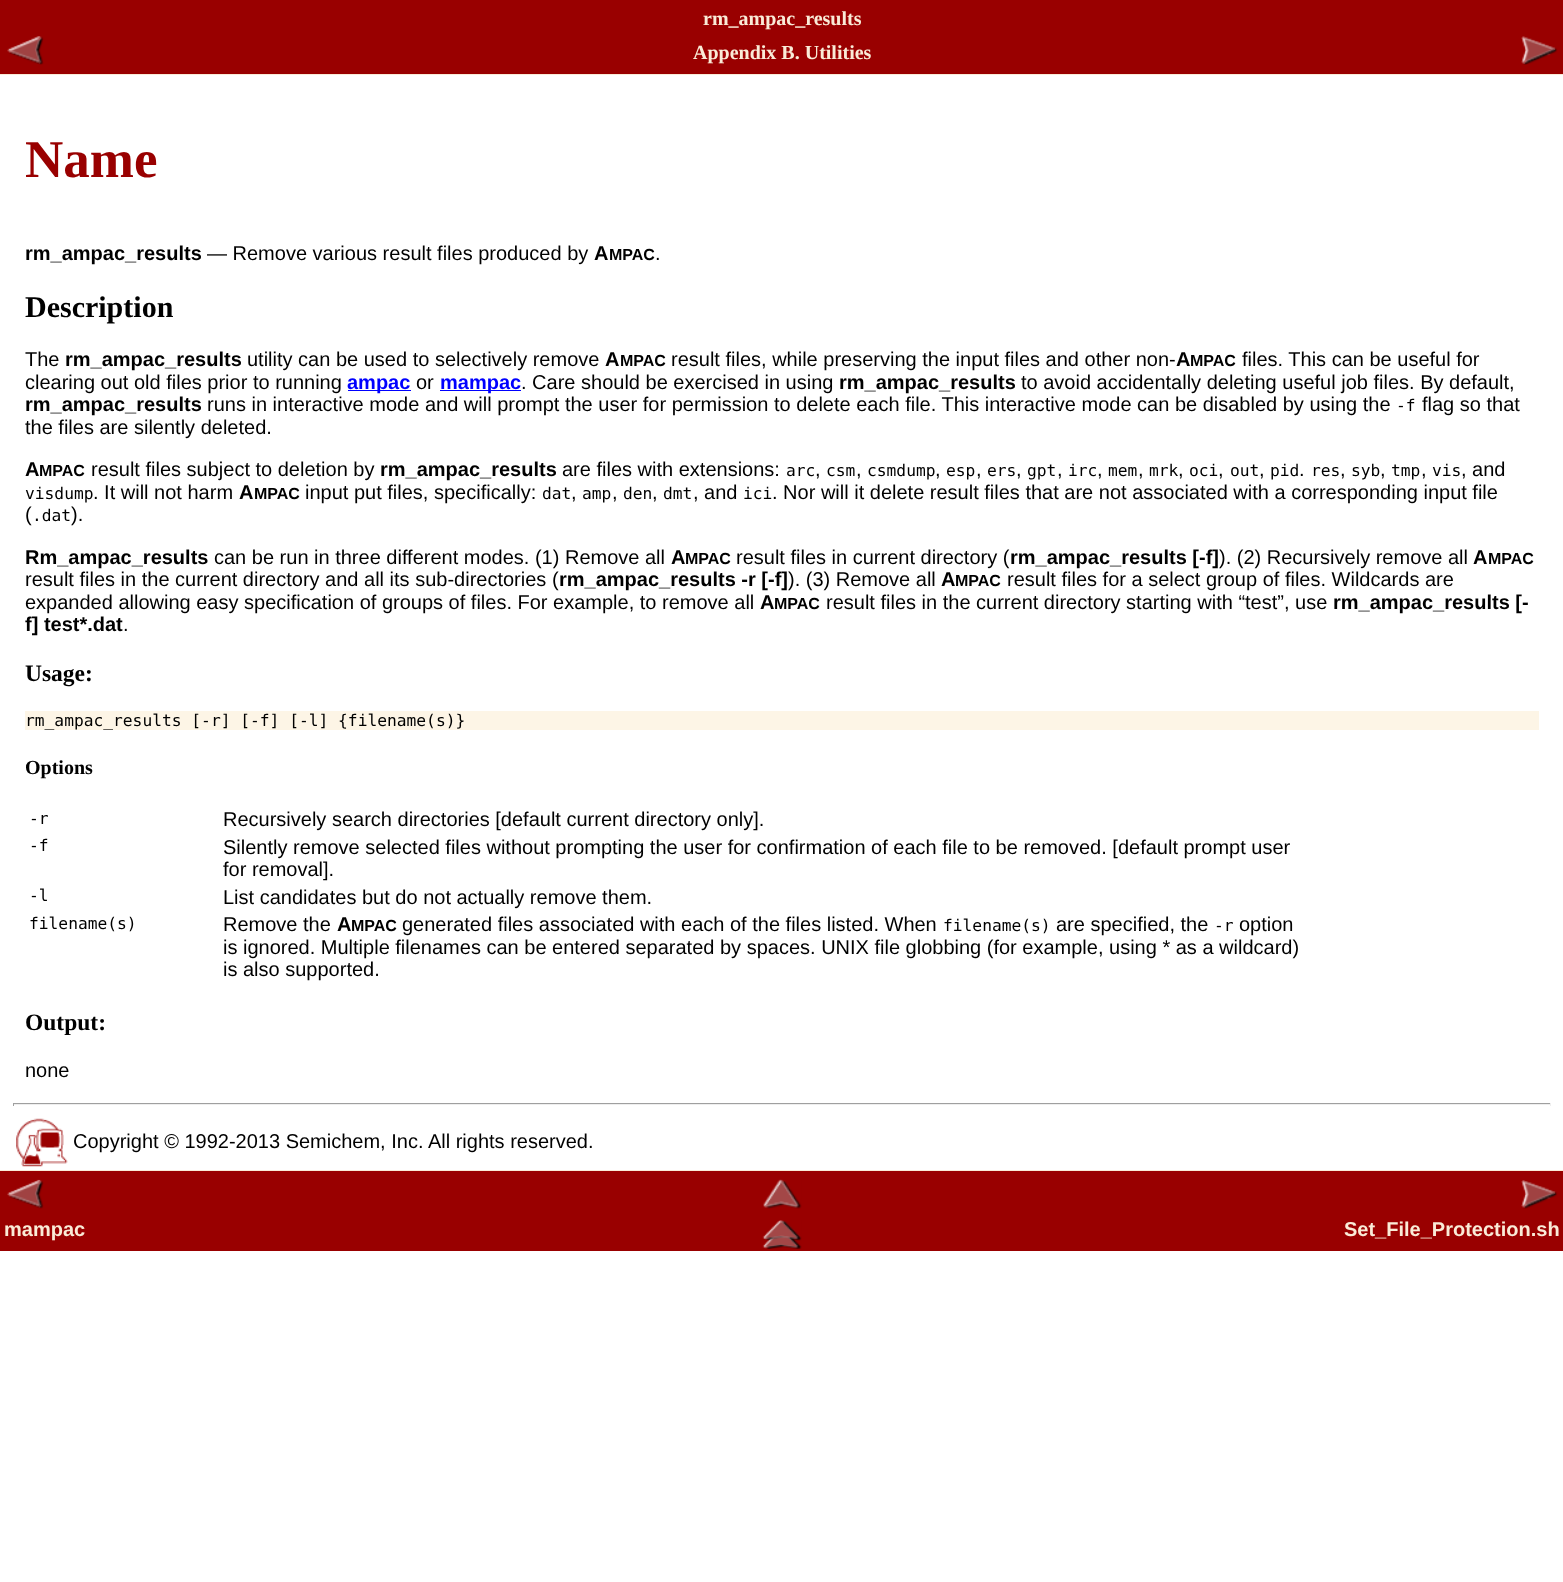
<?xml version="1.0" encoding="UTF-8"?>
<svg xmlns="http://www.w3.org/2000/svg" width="1563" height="1582">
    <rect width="100%" height="100%" fill="#FFFFFF"/>
    <rect x="0" y="0" width="1563" height="74" fill="#990000"/>
    <rect x="0" y="74" width="1563" height="1" fill="#FAEBD7"/>
    <text x="703" y="25" font-family="Liberation Serif" font-size="20" font-weight="700" fill="#FAEBD7">rm_ampac_results</text>
    <image x="7" y="36" width="37" height="29" href="img_01.png"/>
    <text x="693" y="59" font-family="Liberation Serif" font-size="20" font-weight="700" fill="#FAEBD7">Appendix B. Utilities</text>
    <image x="1521" y="36" width="37" height="29" href="img_02.png"/>
    <text x="25" y="177" font-family="Liberation Serif" font-size="53" font-weight="700" fill="#990000">Name</text>
    <text x="25" y="260" font-family="Liberation Sans" font-size="20" font-weight="700" fill="#000000">rm_ampac_results</text>
    <text x="207" y="260" font-family="Liberation Sans" font-size="20" fill="#000000">— Remove various result files produced by</text>
    <text x="594" y="260" font-family="Liberation Sans" font-size="20" font-weight="700" fill="#000000">A</text>
    <text x="609" y="260" font-family="Liberation Sans" font-size="16" font-weight="700" fill="#000000">MPAC</text>
    <text x="655" y="260" font-family="Liberation Sans" font-size="20" fill="#000000">.</text>
    <text x="25" y="317" font-family="Liberation Serif" font-size="30" font-weight="700" fill="#000000">Description</text>
    <text x="25" y="366" font-family="Liberation Sans" font-size="20" fill="#000000">The</text>
    <text x="65" y="366" font-family="Liberation Sans" font-size="20" font-weight="700" fill="#000000">rm_ampac_results</text>
    <text x="247" y="366" font-family="Liberation Sans" font-size="20" fill="#000000">utility can be used to selectively remove</text>
    <text x="605" y="366" font-family="Liberation Sans" font-size="20" font-weight="700" fill="#000000">A</text>
    <text x="620" y="366" font-family="Liberation Sans" font-size="16" font-weight="700" fill="#000000">MPAC</text>
    <text x="671" y="366" font-family="Liberation Sans" font-size="20" fill="#000000">result files, while preserving the input files and other non-</text>
    <text x="1176" y="366" font-family="Liberation Sans" font-size="20" font-weight="700" fill="#000000">A</text>
    <text x="1190" y="366" font-family="Liberation Sans" font-size="16" font-weight="700" fill="#000000">MPAC</text>
    <text x="1242" y="366" font-family="Liberation Sans" font-size="20" fill="#000000">files. This can be useful for</text>
    <text x="25" y="389" font-family="Liberation Sans" font-size="20" fill="#000000">clearing out old files prior to running</text>
    <rect x="348" y="390" width="63" height="1" fill="#0000FF"/>
    <text x="347" y="389" font-family="Liberation Sans" font-size="20" font-weight="700" fill="#0000FF">ampac</text>
    <text x="416" y="389" font-family="Liberation Sans" font-size="20" fill="#000000">or</text>
    <rect x="440" y="390" width="81" height="1" fill="#0000FF"/>
    <text x="440" y="389" font-family="Liberation Sans" font-size="20" font-weight="700" fill="#0000FF">mampac</text>
    <text x="521" y="389" font-family="Liberation Sans" font-size="20" fill="#000000">. Care should be exercised in using</text>
    <text x="839" y="389" font-family="Liberation Sans" font-size="20" font-weight="700" fill="#000000">rm_ampac_results</text>
    <text x="1021" y="389" font-family="Liberation Sans" font-size="20" fill="#000000">to avoid accidentally deleting useful job files. By default,</text>
    <text x="25" y="411" font-family="Liberation Sans" font-size="20" font-weight="700" fill="#000000">rm_ampac_results</text>
    <text x="207" y="411" font-family="Liberation Sans" font-size="20" fill="#000000">runs in interactive mode and will prompt the user for permission to delete each file. This interactive mode can be disabled by using the</text>
    <text x="1396" y="411" font-family="DejaVu Sans Mono" font-size="16.25" fill="#000000">-f</text>
    <text x="1422" y="411" font-family="Liberation Sans" font-size="20" fill="#000000">flag so that</text>
    <text x="25" y="434" font-family="Liberation Sans" font-size="20" fill="#000000">the files are silently deleted.</text>
    <text x="25" y="476" font-family="Liberation Sans" font-size="20" font-weight="700" fill="#000000">A</text>
    <text x="39" y="476" font-family="Liberation Sans" font-size="16" font-weight="700" fill="#000000">MPAC</text>
    <text x="91" y="476" font-family="Liberation Sans" font-size="20" fill="#000000">result files subject to deletion by</text>
    <text x="380" y="476" font-family="Liberation Sans" font-size="20" font-weight="700" fill="#000000">rm_ampac_results</text>
    <text x="562" y="476" font-family="Liberation Sans" font-size="20" fill="#000000">are files with extensions:</text>
    <text x="786" y="476" font-family="DejaVu Sans Mono" font-size="16.25" fill="#000000">arc</text>
    <text x="815" y="476" font-family="Liberation Sans" font-size="20" fill="#000000">,</text>
    <text x="826" y="476" font-family="DejaVu Sans Mono" font-size="16.25" fill="#000000">csm</text>
    <text x="856" y="476" font-family="Liberation Sans" font-size="20" fill="#000000">,</text>
    <text x="867" y="476" font-family="DejaVu Sans Mono" font-size="16.25" fill="#000000">csmdump</text>
    <text x="935" y="476" font-family="Liberation Sans" font-size="20" fill="#000000">,</text>
    <text x="946" y="476" font-family="DejaVu Sans Mono" font-size="16.25" fill="#000000">esp</text>
    <text x="976" y="476" font-family="Liberation Sans" font-size="20" fill="#000000">,</text>
    <text x="987" y="476" font-family="DejaVu Sans Mono" font-size="16.25" fill="#000000">ers</text>
    <text x="1016" y="476" font-family="Liberation Sans" font-size="20" fill="#000000">,</text>
    <text x="1027" y="476" font-family="DejaVu Sans Mono" font-size="16.25" fill="#000000">gpt</text>
    <text x="1057" y="476" font-family="Liberation Sans" font-size="20" fill="#000000">,</text>
    <text x="1068" y="476" font-family="DejaVu Sans Mono" font-size="16.25" fill="#000000">irc</text>
    <text x="1097" y="476" font-family="Liberation Sans" font-size="20" fill="#000000">,</text>
    <text x="1108" y="476" font-family="DejaVu Sans Mono" font-size="16.25" fill="#000000">mem</text>
    <text x="1138" y="476" font-family="Liberation Sans" font-size="20" fill="#000000">,</text>
    <text x="1149" y="476" font-family="DejaVu Sans Mono" font-size="16.25" fill="#000000">mrk</text>
    <text x="1178" y="476" font-family="Liberation Sans" font-size="20" fill="#000000">,</text>
    <text x="1189" y="476" font-family="DejaVu Sans Mono" font-size="16.25" fill="#000000">oci</text>
    <text x="1218" y="476" font-family="Liberation Sans" font-size="20" fill="#000000">,</text>
    <text x="1230" y="476" font-family="DejaVu Sans Mono" font-size="16.25" fill="#000000">out</text>
    <text x="1259" y="476" font-family="Liberation Sans" font-size="20" fill="#000000">,</text>
    <text x="1270" y="476" font-family="DejaVu Sans Mono" font-size="16.25" fill="#000000">pid</text>
    <text x="1299" y="476" font-family="Liberation Sans" font-size="20" fill="#000000">.</text>
    <text x="1311" y="476" font-family="DejaVu Sans Mono" font-size="16.25" fill="#000000">res</text>
    <text x="1340" y="476" font-family="Liberation Sans" font-size="20" fill="#000000">,</text>
    <text x="1351" y="476" font-family="DejaVu Sans Mono" font-size="16.25" fill="#000000">syb</text>
    <text x="1380" y="476" font-family="Liberation Sans" font-size="20" fill="#000000">,</text>
    <text x="1391" y="476" font-family="DejaVu Sans Mono" font-size="16.25" fill="#000000">tmp</text>
    <text x="1421" y="476" font-family="Liberation Sans" font-size="20" fill="#000000">,</text>
    <text x="1432" y="476" font-family="DejaVu Sans Mono" font-size="16.25" fill="#000000">vis</text>
    <text x="1461" y="476" font-family="Liberation Sans" font-size="20" fill="#000000">, and</text>
    <text x="25" y="499" font-family="DejaVu Sans Mono" font-size="16.25" fill="#000000">visdump</text>
    <text x="93" y="499" font-family="Liberation Sans" font-size="20" fill="#000000">. It will not harm</text>
    <text x="239" y="499" font-family="Liberation Sans" font-size="20" font-weight="700" fill="#000000">A</text>
    <text x="254" y="499" font-family="Liberation Sans" font-size="16" font-weight="700" fill="#000000">MPAC</text>
    <text x="305" y="499" font-family="Liberation Sans" font-size="20" fill="#000000">input put files, specifically:</text>
    <text x="542" y="499" font-family="DejaVu Sans Mono" font-size="16.25" fill="#000000">dat</text>
    <text x="571" y="499" font-family="Liberation Sans" font-size="20" fill="#000000">,</text>
    <text x="582" y="499" font-family="DejaVu Sans Mono" font-size="16.25" fill="#000000">amp</text>
    <text x="612" y="499" font-family="Liberation Sans" font-size="20" fill="#000000">,</text>
    <text x="623" y="499" font-family="DejaVu Sans Mono" font-size="16.25" fill="#000000">den</text>
    <text x="652" y="499" font-family="Liberation Sans" font-size="20" fill="#000000">,</text>
    <text x="663" y="499" font-family="DejaVu Sans Mono" font-size="16.25" fill="#000000">dmt</text>
    <text x="693" y="499" font-family="Liberation Sans" font-size="20" fill="#000000">, and</text>
    <text x="743" y="499" font-family="DejaVu Sans Mono" font-size="16.25" fill="#000000">ici</text>
    <text x="772" y="499" font-family="Liberation Sans" font-size="20" fill="#000000">. Nor will it delete result files that are not associated with a corresponding input file</text>
    <text x="25" y="521" font-family="Liberation Sans" font-size="20" fill="#000000">(</text>
    <text x="32" y="521" font-family="DejaVu Sans Mono" font-size="16.25" fill="#000000">.dat</text>
    <text x="71" y="521" font-family="Liberation Sans" font-size="20" fill="#000000">).</text>
    <text x="25" y="564" font-family="Liberation Sans" font-size="20" font-weight="700" fill="#000000">Rm_ampac_results</text>
    <text x="214" y="564" font-family="Liberation Sans" font-size="20" fill="#000000">can be run in three different modes. (1) Remove all</text>
    <text x="671" y="564" font-family="Liberation Sans" font-size="20" font-weight="700" fill="#000000">A</text>
    <text x="685" y="564" font-family="Liberation Sans" font-size="16" font-weight="700" fill="#000000">MPAC</text>
    <text x="736" y="564" font-family="Liberation Sans" font-size="20" fill="#000000">result files in current directory (</text>
    <text x="1010" y="564" font-family="Liberation Sans" font-size="20" font-weight="700" fill="#000000">rm_ampac_results [-f]</text>
    <text x="1219" y="564" font-family="Liberation Sans" font-size="20" fill="#000000">). (2) Recursively remove all</text>
    <text x="1473" y="564" font-family="Liberation Sans" font-size="20" font-weight="700" fill="#000000">A</text>
    <text x="1488" y="564" font-family="Liberation Sans" font-size="16" font-weight="700" fill="#000000">MPAC</text>
    <text x="25" y="586" font-family="Liberation Sans" font-size="20" fill="#000000">result files in the current directory and all its sub-directories (</text>
    <text x="559" y="586" font-family="Liberation Sans" font-size="20" font-weight="700" fill="#000000">rm_ampac_results -r [-f]</text>
    <text x="788" y="586" font-family="Liberation Sans" font-size="20" fill="#000000">). (3) Remove all</text>
    <text x="941" y="586" font-family="Liberation Sans" font-size="20" font-weight="700" fill="#000000">A</text>
    <text x="955" y="586" font-family="Liberation Sans" font-size="16" font-weight="700" fill="#000000">MPAC</text>
    <text x="1007" y="586" font-family="Liberation Sans" font-size="20" fill="#000000">result files for a select group of files. Wildcards are</text>
    <text x="25" y="609" font-family="Liberation Sans" font-size="20" fill="#000000">expanded allowing easy specification of groups of files. For example, to remove all</text>
    <text x="760" y="609" font-family="Liberation Sans" font-size="20" font-weight="700" fill="#000000">A</text>
    <text x="774" y="609" font-family="Liberation Sans" font-size="16" font-weight="700" fill="#000000">MPAC</text>
    <text x="826" y="609" font-family="Liberation Sans" font-size="20" fill="#000000">result files in the current directory starting with “test”, use</text>
    <text x="1333" y="609" font-family="Liberation Sans" font-size="20" font-weight="700" fill="#000000">rm_ampac_results [-</text>
    <text x="25" y="631" font-family="Liberation Sans" font-size="20" font-weight="700" fill="#000000">f] test*.dat</text>
    <text x="123" y="631" font-family="Liberation Sans" font-size="20" fill="#000000">.</text>
    <text x="25" y="681" font-family="Liberation Serif" font-size="23.5" font-weight="700" fill="#000000">Usage:</text>
    <rect x="25" y="711" width="1514" height="19" fill="#FDF5E6"/>
    <text x="25" y="726" font-family="DejaVu Sans Mono" font-size="16.25" fill="#000000">rm_ampac_results [-r] [-f] [-l] {filename(s)}</text>
    <text x="25" y="774" font-family="Liberation Serif" font-size="20" font-weight="700" fill="#000000">Options</text>
    <text x="29" y="824" font-family="DejaVu Sans Mono" font-size="16.25" fill="#000000">-r</text>
    <text x="223" y="826" font-family="Liberation Sans" font-size="20" fill="#000000">Recursively search directories [default current directory only].</text>
    <text x="29" y="851" font-family="DejaVu Sans Mono" font-size="16.25" fill="#000000">-f</text>
    <text font-family="Liberation Sans" font-size="20" fill="#000000">
        <tspan x="223" y="854">Silently remove selected files without prompting the user for confirmation of each file to be removed. [default prompt user</tspan>
        <tspan x="223" y="876">for removal].</tspan>
    </text>
    <text x="29" y="901" font-family="DejaVu Sans Mono" font-size="16.25" fill="#000000">-l</text>
    <text x="223" y="904" font-family="Liberation Sans" font-size="20" fill="#000000">List candidates but do not actually remove them.</text>
    <text x="29" y="929" font-family="DejaVu Sans Mono" font-size="16.25" fill="#000000">filename(s)</text>
    <text x="223" y="931" font-family="Liberation Sans" font-size="20" fill="#000000">Remove the</text>
    <text x="337" y="931" font-family="Liberation Sans" font-size="20" font-weight="700" fill="#000000">A</text>
    <text x="351" y="931" font-family="Liberation Sans" font-size="16" font-weight="700" fill="#000000">MPAC</text>
    <text x="402" y="931" font-family="Liberation Sans" font-size="20" fill="#000000">generated files associated with each of the files listed. When</text>
    <text x="943" y="931" font-family="DejaVu Sans Mono" font-size="16.25" fill="#000000">filename(s)</text>
    <text x="1056" y="931" font-family="Liberation Sans" font-size="20" fill="#000000">are specified, the</text>
    <text x="1214" y="931" font-family="DejaVu Sans Mono" font-size="16.25" fill="#000000">-r</text>
    <text x="1239" y="931" font-family="Liberation Sans" font-size="20" fill="#000000">option</text>
    <text font-family="Liberation Sans" font-size="20" fill="#000000">
        <tspan x="223" y="954">is ignored. Multiple filenames can be entered separated by spaces. UNIX file globbing (for example, using * as a wildcard)</tspan>
        <tspan x="223" y="976">is also supported.</tspan>
    </text>
    <text x="25" y="1030" font-family="Liberation Serif" font-size="23.5" font-weight="700" fill="#000000">Output:</text>
    <text x="25" y="1077" font-family="Liberation Sans" font-size="20" fill="#000000">none</text>
    <rect x="13" y="1103" width="1538" height="1" fill="#9F9F9F"/>
    <rect x="1550" y="1103" width="1" height="3" fill="#EEEEEE"/>
    <rect x="13" y="1104" width="1538" height="1" fill="#EEEEEE"/>
    <rect x="13" y="1103" width="1" height="3" fill="#9F9F9F"/>
    <image x="16" y="1118" width="52" height="49" href="img_03.png"/>
    <text x="73" y="1148" font-family="Liberation Sans" font-size="20" fill="#000000">Copyright © 1992-2013 Semichem, Inc. All rights reserved.</text>
    <rect x="0" y="1171" width="1563" height="80" fill="#990000"/>
    <rect x="0" y="1170" width="1563" height="1" fill="#FAEBD7"/>
    <image x="7" y="1179" width="37" height="30" href="img_04.png"/>
    <image x="763" y="1179" width="39" height="30" href="img_05.png"/>
    <image x="1521" y="1180" width="37" height="29" href="img_06.png"/>
    <text x="4" y="1236" font-family="Liberation Sans" font-size="20" font-weight="700" fill="#FAEBD7">mampac</text>
    <image x="762" y="1220" width="40" height="29" href="img_07.png"/>
    <text x="1344" y="1236" font-family="Liberation Sans" font-size="20" font-weight="700" fill="#FAEBD7">Set_File_Protection.sh</text>
</svg>
